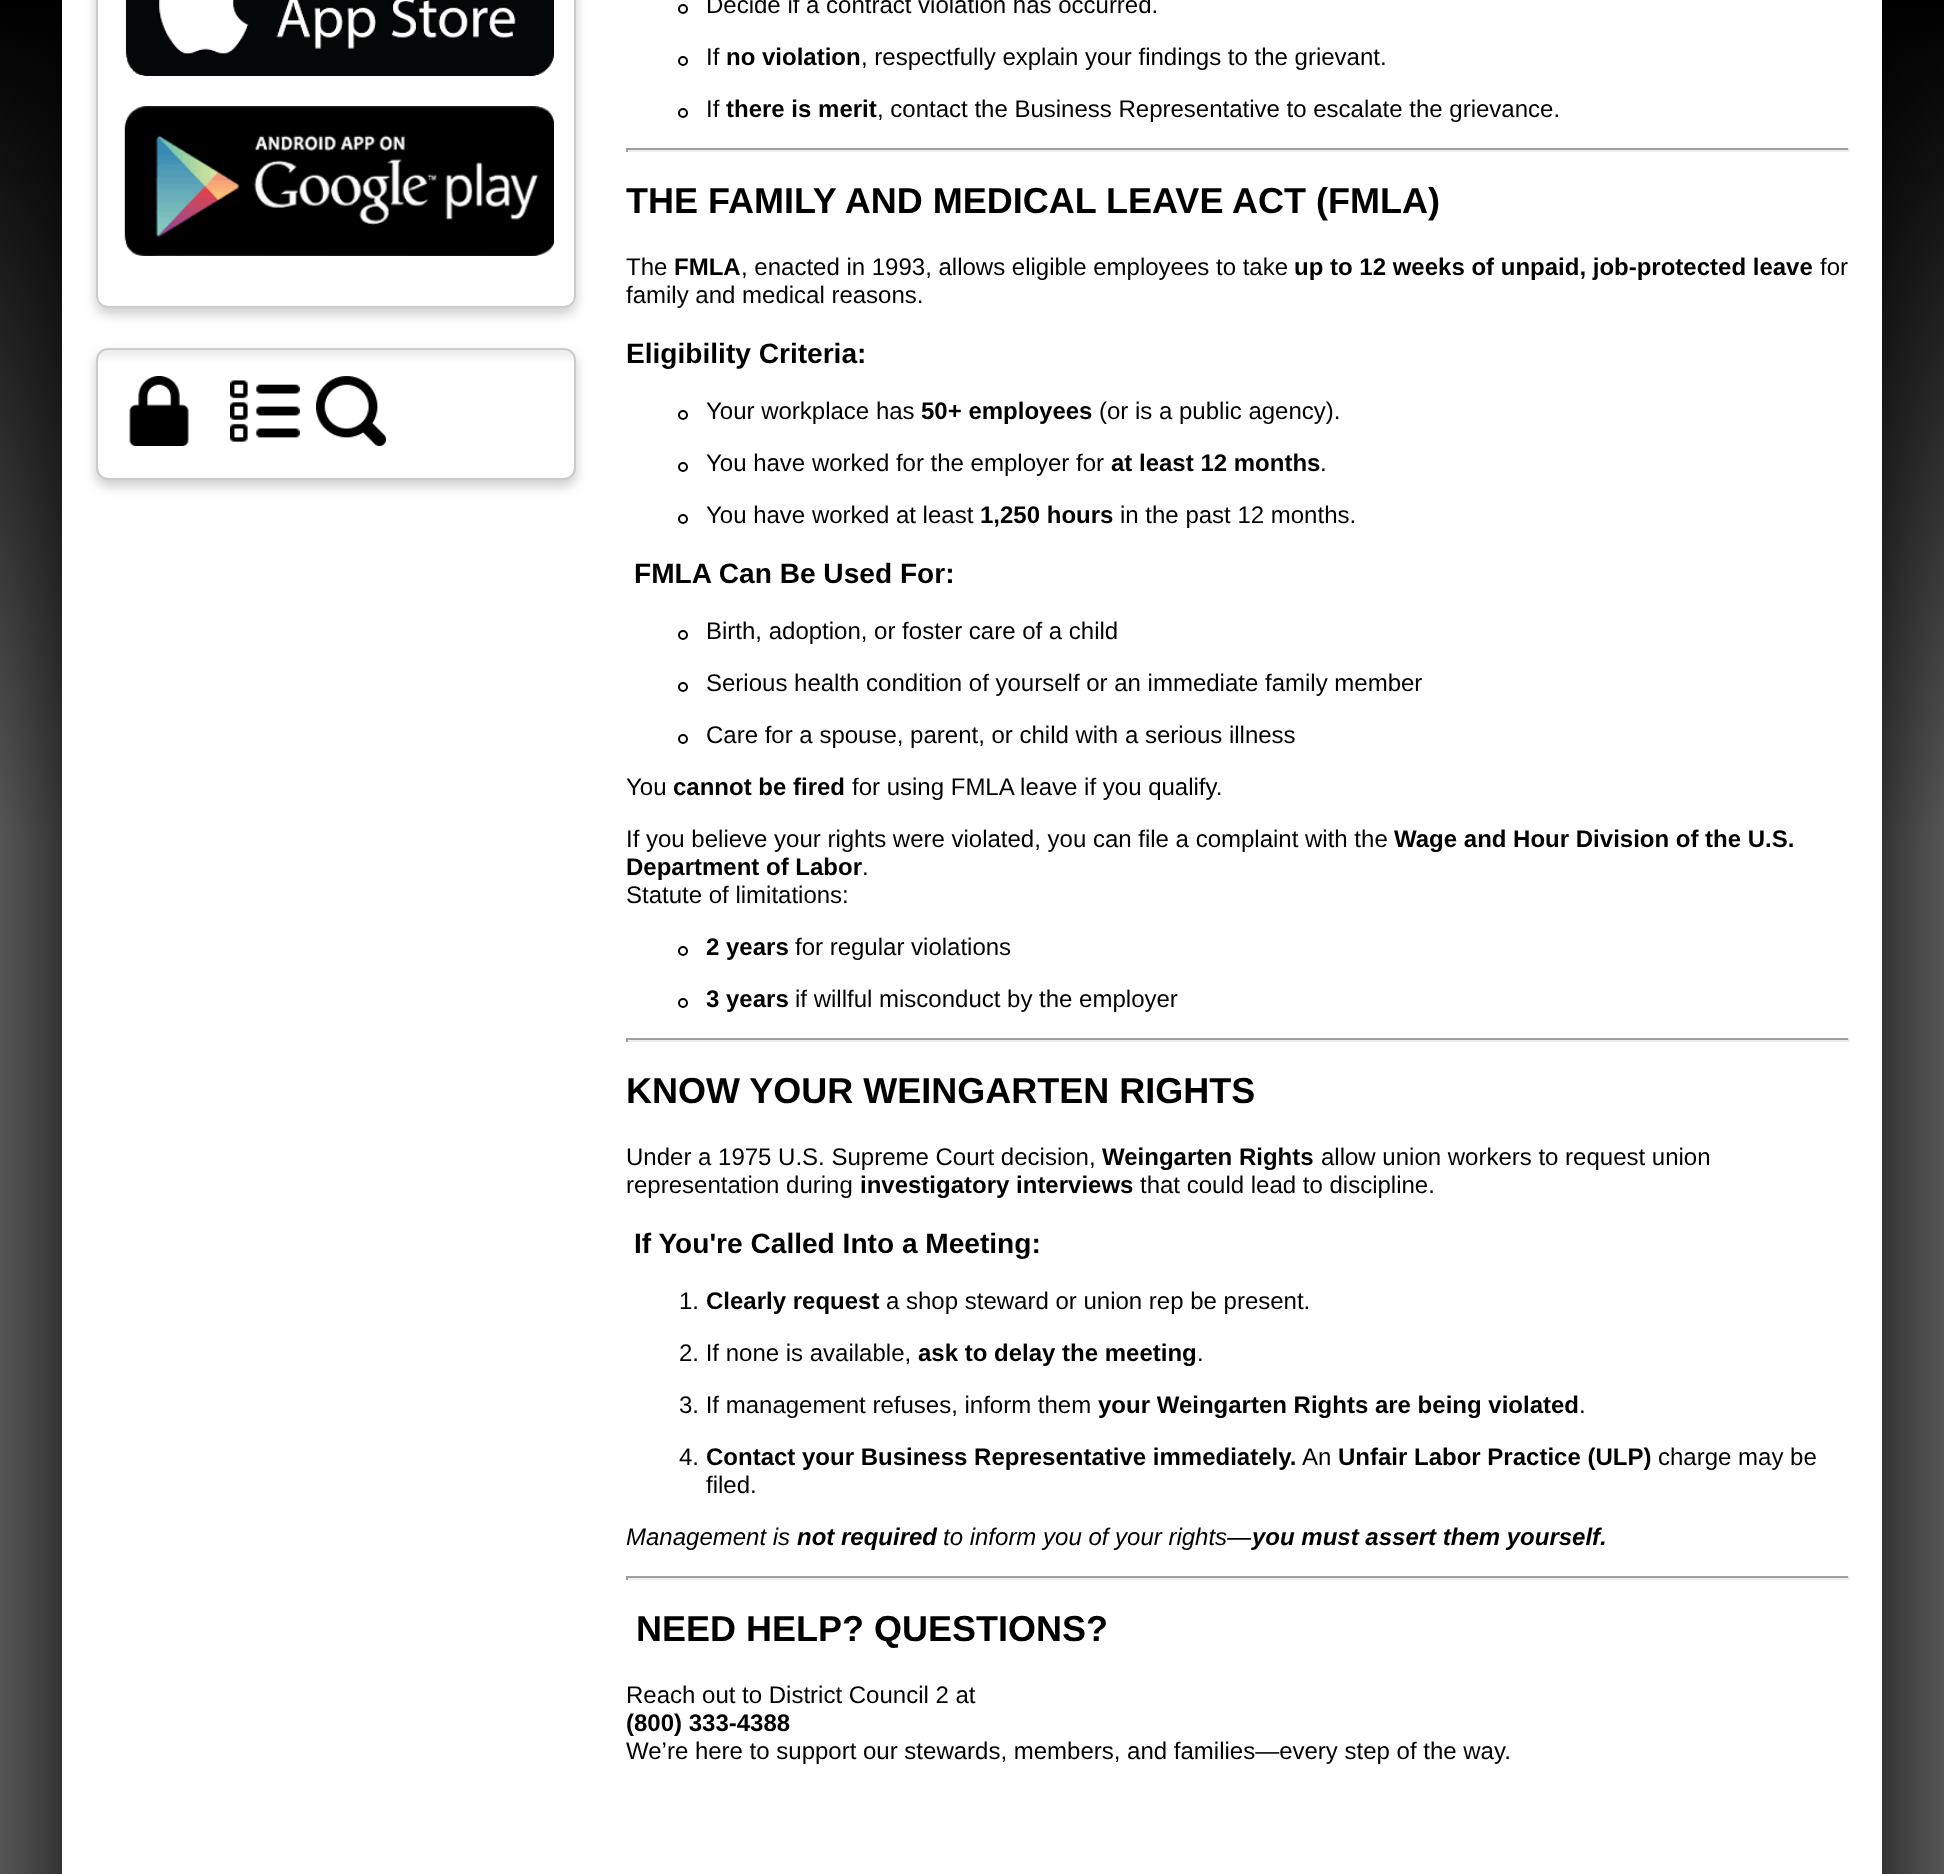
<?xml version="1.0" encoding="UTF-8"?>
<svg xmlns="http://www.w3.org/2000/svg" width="1944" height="1874">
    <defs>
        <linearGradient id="g1" gradientUnits="userSpaceOnUse" x1="972" y1="0" x2="972" y2="1874"><stop offset="0" stop-color="#000000"/><stop offset="0.45" stop-color="#666666"/></linearGradient>
        <filter id="blur1" x="-50%" y="-200%" width="200%" height="500%"><feGaussianBlur stdDeviation="65"/></filter>
        <clipPath id="clip1"><path d="M 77 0 H 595 V 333 H 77 Z M 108 -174 H 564 C 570.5 -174 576 -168.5 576 -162 V 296 C 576 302.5 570.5 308 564 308 H 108 C 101.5 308 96 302.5 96 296 V -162 C 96 -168.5 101.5 -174 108 -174 Z" clip-rule="evenodd"/></clipPath>
        <filter id="blur2" x="-50%" y="-200%" width="200%" height="500%"><feGaussianBlur stdDeviation="6"/></filter>
        <linearGradient id="g2" gradientUnits="userSpaceOnUse" x1="336" y1="350" x2="336" y2="478"><stop offset="0" stop-color="#ECECEC"/><stop offset="0.1" stop-color="#FFFFFF"/></linearGradient>
    </defs>
    <rect width="100%" height="100%" fill="#FFFFFF"/>
    <rect x="0" y="0" width="1944" height="1874" fill="url(#g1)"/>
    <rect x="62" y="-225" width="1820" height="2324" rx="30" fill="#000000" filter="url(#blur1)"/>
    <rect x="62" y="0" width="1820" height="1874" fill="#FFFFFF"/>
    <g clip-path="url(#clip1)">
        <rect x="96" y="-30" width="480" height="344" rx="12" fill="#CCCCCC" filter="url(#blur2)"/>
    </g>
    <rect x="97" y="-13" width="478" height="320" rx="11" fill="none" stroke="#CCCCCC" stroke-width="2"/>
    <image x="125" y="0" width="429" height="76" href="img_01.png"/>
    <image x="124" y="106" width="430" height="150" href="img_02.png"/>
    <rect x="96" y="354" width="480" height="132" rx="12" fill="#CCCCCC" filter="url(#blur2)"/>
    <rect x="98" y="350" width="476" height="128" rx="10" fill="url(#g2)"/>
    <rect x="97" y="349" width="478" height="130" rx="11" fill="none" stroke="#CCCCCC" stroke-width="2"/>
    <image x="129" y="376" width="60" height="70" href="img_03.png"/>
    <image x="230" y="380" width="70" height="62" href="img_04.png"/>
    <image x="316" y="376" width="70" height="70" href="img_05.png"/>
    <circle cx="683" cy="9" r="4" fill="none" stroke="#000000" stroke-width="2"/>
    <text x="706" y="13" font-family="Liberation Sans" font-size="24" fill="#000000">Decide if a contract violation has occurred.</text>
    <circle cx="683" cy="61" r="4" fill="none" stroke="#000000" stroke-width="2"/>
    <text x="706" y="65" font-family="Liberation Sans" font-size="24" fill="#000000">If</text>
    <text x="726" y="65" font-family="Liberation Sans" font-size="24" font-weight="700" fill="#000000">no violation</text>
    <text x="861" y="65" font-family="Liberation Sans" font-size="24" fill="#000000">, respectfully explain your findings to the grievant.</text>
    <circle cx="683" cy="113" r="4" fill="none" stroke="#000000" stroke-width="2"/>
    <text x="706" y="117" font-family="Liberation Sans" font-size="24" fill="#000000">If</text>
    <text x="726" y="117" font-family="Liberation Sans" font-size="24" font-weight="700" fill="#000000">there is merit</text>
    <text x="877" y="117" font-family="Liberation Sans" font-size="24" fill="#000000">, contact the Business Representative to escalate the grievance.</text>
    <rect x="626" y="148" width="1224" height="2" fill="#9F9F9F"/>
    <rect x="1848" y="148" width="2" height="4" fill="#EEEEEE"/>
    <rect x="626" y="150" width="1224" height="2" fill="#EEEEEE"/>
    <rect x="626" y="148" width="2" height="4" fill="#9F9F9F"/>
    <text x="626" y="213" font-family="Liberation Sans" font-size="36" font-weight="700" fill="#000000">THE FAMILY AND MEDICAL LEAVE ACT (FMLA)</text>
    <text x="626" y="275" font-family="Liberation Sans" font-size="24" fill="#000000">The</text>
    <text x="674" y="275" font-family="Liberation Sans" font-size="24" font-weight="700" fill="#000000">FMLA</text>
    <text x="741" y="275" font-family="Liberation Sans" font-size="24" fill="#000000">, enacted in 1993, allows eligible employees to take</text>
    <text x="1294" y="275" font-family="Liberation Sans" font-size="24" font-weight="700" fill="#000000">up to 12 weeks of unpaid, job-protected leave</text>
    <text x="1820" y="275" font-family="Liberation Sans" font-size="24" fill="#000000">for</text>
    <text x="626" y="303" font-family="Liberation Sans" font-size="24" fill="#000000">family and medical reasons.</text>
    <text x="626" y="363" font-family="Liberation Sans" font-size="28.1" font-weight="700" fill="#000000">Eligibility Criteria:</text>
    <circle cx="683" cy="415" r="4" fill="none" stroke="#000000" stroke-width="2"/>
    <text x="706" y="419" font-family="Liberation Sans" font-size="24" fill="#000000">Your workplace has</text>
    <text x="921" y="419" font-family="Liberation Sans" font-size="24" font-weight="700" fill="#000000">50+ employees</text>
    <text x="1099" y="419" font-family="Liberation Sans" font-size="24" fill="#000000">(or is a public agency).</text>
    <circle cx="683" cy="467" r="4" fill="none" stroke="#000000" stroke-width="2"/>
    <text x="706" y="471" font-family="Liberation Sans" font-size="24" fill="#000000">You have worked for the employer for</text>
    <text x="1111" y="471" font-family="Liberation Sans" font-size="24" font-weight="700" fill="#000000">at least 12 months</text>
    <text x="1320" y="471" font-family="Liberation Sans" font-size="24" fill="#000000">.</text>
    <circle cx="683" cy="519" r="4" fill="none" stroke="#000000" stroke-width="2"/>
    <text x="706" y="523" font-family="Liberation Sans" font-size="24" fill="#000000">You have worked at least</text>
    <text x="980" y="523" font-family="Liberation Sans" font-size="24" font-weight="700" fill="#000000">1,250 hours</text>
    <text x="1120" y="523" font-family="Liberation Sans" font-size="24" fill="#000000">in the past 12 months.</text>
    <text x="634" y="583" font-family="Liberation Sans" font-size="28.1" font-weight="700" fill="#000000">FMLA Can Be Used For:</text>
    <circle cx="683" cy="635" r="4" fill="none" stroke="#000000" stroke-width="2"/>
    <text x="706" y="639" font-family="Liberation Sans" font-size="24" fill="#000000">Birth, adoption, or foster care of a child</text>
    <circle cx="683" cy="687" r="4" fill="none" stroke="#000000" stroke-width="2"/>
    <text x="706" y="691" font-family="Liberation Sans" font-size="24" fill="#000000">Serious health condition of yourself or an immediate family member</text>
    <circle cx="683" cy="739" r="4" fill="none" stroke="#000000" stroke-width="2"/>
    <text x="706" y="743" font-family="Liberation Sans" font-size="24" fill="#000000">Care for a spouse, parent, or child with a serious illness</text>
    <text x="626" y="795" font-family="Liberation Sans" font-size="24" fill="#000000">You</text>
    <text x="673" y="795" font-family="Liberation Sans" font-size="24" font-weight="700" fill="#000000">cannot be fired</text>
    <text x="852" y="795" font-family="Liberation Sans" font-size="24" fill="#000000">for using FMLA leave if you qualify.</text>
    <text x="626" y="847" font-family="Liberation Sans" font-size="24" fill="#000000">If you believe your rights were violated, you can file a complaint with the</text>
    <text x="1394" y="847" font-family="Liberation Sans" font-size="24" font-weight="700" fill="#000000">Wage and Hour Division of the U.S.</text>
    <text x="626" y="875" font-family="Liberation Sans" font-size="24" font-weight="700" fill="#000000">Department of Labor</text>
    <text x="862" y="875" font-family="Liberation Sans" font-size="24" fill="#000000">.</text>
    <text x="626" y="903" font-family="Liberation Sans" font-size="24" fill="#000000">Statute of limitations:</text>
    <circle cx="683" cy="951" r="4" fill="none" stroke="#000000" stroke-width="2"/>
    <text x="706" y="955" font-family="Liberation Sans" font-size="24" font-weight="700" fill="#000000">2 years</text>
    <text x="795" y="955" font-family="Liberation Sans" font-size="24" fill="#000000">for regular violations</text>
    <circle cx="683" cy="1003" r="4" fill="none" stroke="#000000" stroke-width="2"/>
    <text x="706" y="1007" font-family="Liberation Sans" font-size="24" font-weight="700" fill="#000000">3 years</text>
    <text x="795" y="1007" font-family="Liberation Sans" font-size="24" fill="#000000">if willful misconduct by the employer</text>
    <rect x="626" y="1038" width="1224" height="2" fill="#9F9F9F"/>
    <rect x="1848" y="1038" width="2" height="4" fill="#EEEEEE"/>
    <rect x="626" y="1040" width="1224" height="2" fill="#EEEEEE"/>
    <rect x="626" y="1038" width="2" height="4" fill="#9F9F9F"/>
    <text x="626" y="1103" font-family="Liberation Sans" font-size="36" font-weight="700" fill="#000000">KNOW YOUR WEINGARTEN RIGHTS</text>
    <text x="626" y="1165" font-family="Liberation Sans" font-size="24" fill="#000000">Under a 1975 U.S. Supreme Court decision,</text>
    <text x="1102" y="1165" font-family="Liberation Sans" font-size="24" font-weight="700" fill="#000000">Weingarten Rights</text>
    <text x="1321" y="1165" font-family="Liberation Sans" font-size="24" fill="#000000">allow union workers to request union</text>
    <text x="626" y="1193" font-family="Liberation Sans" font-size="24" fill="#000000">representation during</text>
    <text x="860" y="1193" font-family="Liberation Sans" font-size="24" font-weight="700" fill="#000000">investigatory interviews</text>
    <text x="1140" y="1193" font-family="Liberation Sans" font-size="24" fill="#000000">that could lead to discipline.</text>
    <text x="634" y="1253" font-family="Liberation Sans" font-size="28.1" font-weight="700" fill="#000000">If You're Called Into a Meeting:</text>
    <text x="679" y="1309" font-family="Liberation Sans" font-size="24" fill="#000000">1.</text>
    <text x="706" y="1309" font-family="Liberation Sans" font-size="24" font-weight="700" fill="#000000">Clearly request</text>
    <text x="886" y="1309" font-family="Liberation Sans" font-size="24" fill="#000000">a shop steward or union rep be present.</text>
    <text x="679" y="1361" font-family="Liberation Sans" font-size="24" fill="#000000">2. If none is available,</text>
    <text x="918" y="1361" font-family="Liberation Sans" font-size="24" font-weight="700" fill="#000000">ask to delay the meeting</text>
    <text x="1197" y="1361" font-family="Liberation Sans" font-size="24" fill="#000000">.</text>
    <text x="679" y="1413" font-family="Liberation Sans" font-size="24" fill="#000000">3. If management refuses, inform them</text>
    <text x="1098" y="1413" font-family="Liberation Sans" font-size="24" font-weight="700" fill="#000000">your Weingarten Rights are being violated</text>
    <text x="1579" y="1413" font-family="Liberation Sans" font-size="24" fill="#000000">.</text>
    <text x="679" y="1465" font-family="Liberation Sans" font-size="24" fill="#000000">4.</text>
    <text x="706" y="1465" font-family="Liberation Sans" font-size="24" font-weight="700" fill="#000000">Contact your Business Representative immediately.</text>
    <text x="1302" y="1465" font-family="Liberation Sans" font-size="24" fill="#000000">An</text>
    <text x="1338" y="1465" font-family="Liberation Sans" font-size="24" font-weight="700" fill="#000000">Unfair Labor Practice (ULP)</text>
    <text x="1658" y="1465" font-family="Liberation Sans" font-size="24" fill="#000000">charge may be</text>
    <text x="706" y="1493" font-family="Liberation Sans" font-size="24" fill="#000000">filed.</text>
    <text x="626" y="1545" font-family="Liberation Sans" font-size="24" font-style="italic" fill="#000000">Management is</text>
    <text x="797" y="1545" font-family="Liberation Sans" font-size="24" font-weight="700" font-style="italic" fill="#000000">not required</text>
    <text x="943" y="1545" font-family="Liberation Sans" font-size="24" font-style="italic" fill="#000000">to inform you of your rights—</text>
    <text x="1252" y="1545" font-family="Liberation Sans" font-size="24" font-weight="700" font-style="italic" fill="#000000">you must assert them yourself.</text>
    <rect x="626" y="1576" width="1224" height="2" fill="#9F9F9F"/>
    <rect x="1848" y="1576" width="2" height="4" fill="#EEEEEE"/>
    <rect x="626" y="1578" width="1224" height="2" fill="#EEEEEE"/>
    <rect x="626" y="1576" width="2" height="4" fill="#9F9F9F"/>
    <text x="636" y="1641" font-family="Liberation Sans" font-size="36" font-weight="700" fill="#000000">NEED HELP? QUESTIONS?</text>
    <text x="626" y="1703" font-family="Liberation Sans" font-size="24" fill="#000000">Reach out to District Council 2 at</text>
    <text x="626" y="1731" font-family="Liberation Sans" font-size="24" font-weight="700" fill="#000000">(800) 333-4388</text>
    <text x="626" y="1759" font-family="Liberation Sans" font-size="24" fill="#000000">We’re here to support our stewards, members, and families—every step of the way.</text>
</svg>
